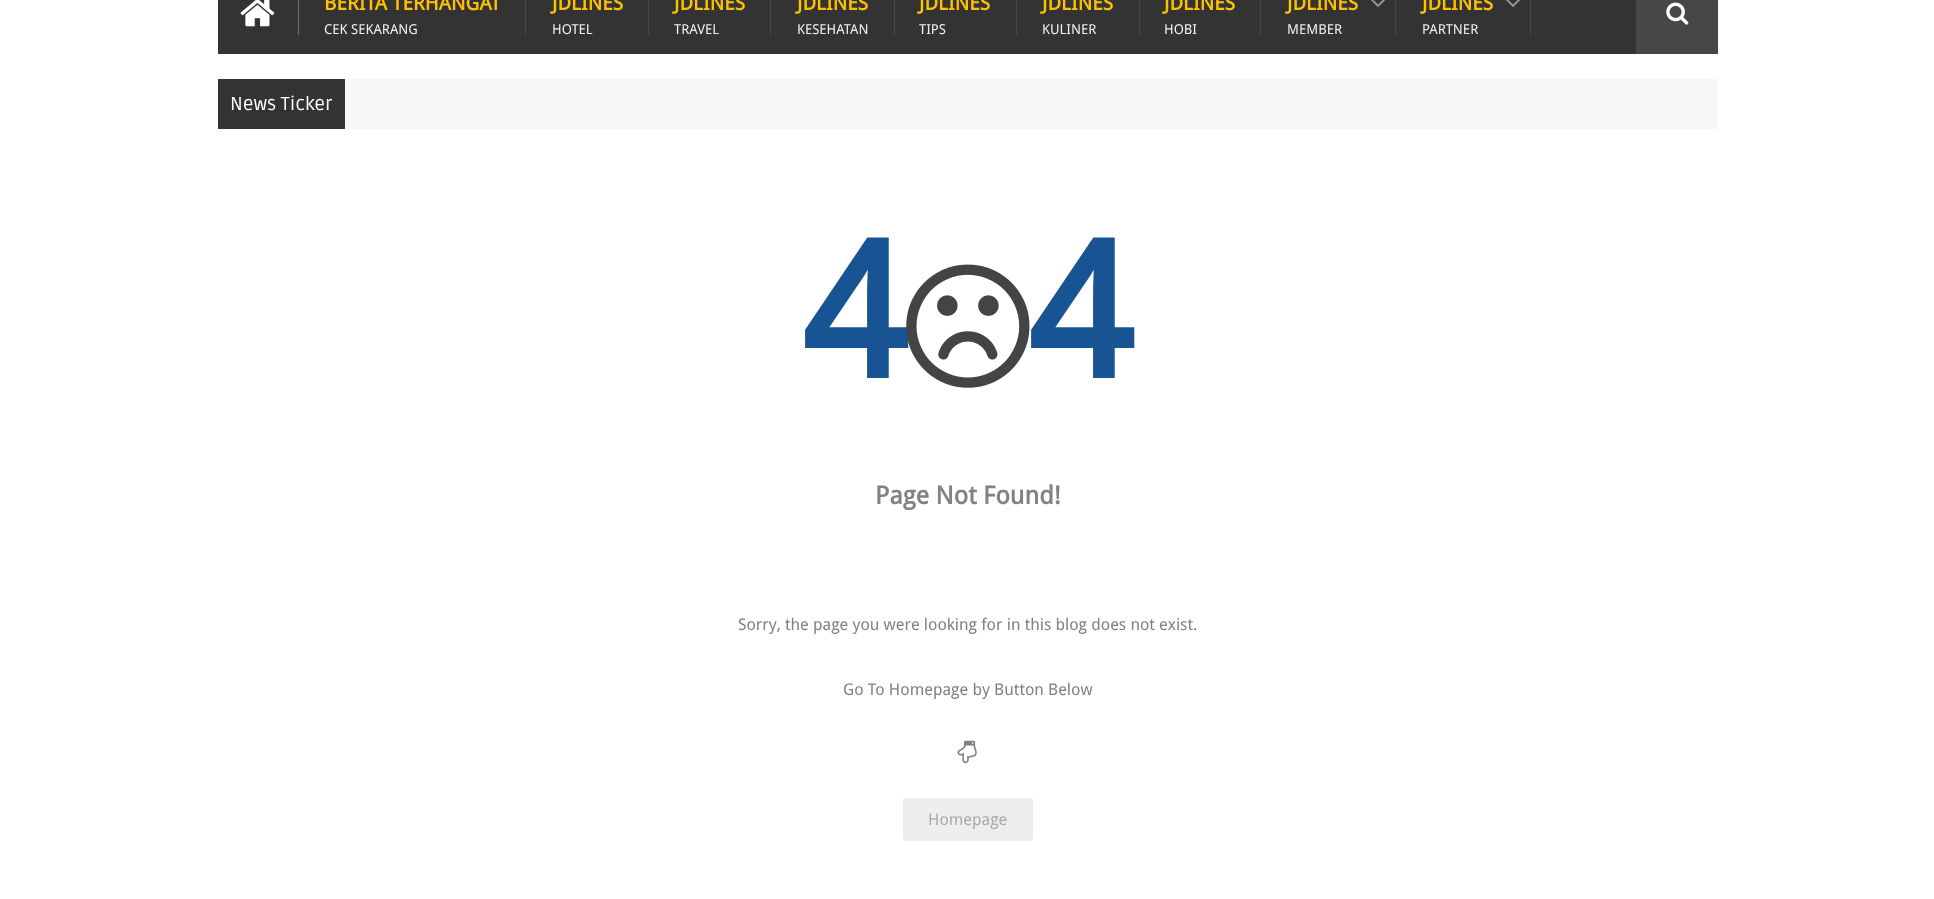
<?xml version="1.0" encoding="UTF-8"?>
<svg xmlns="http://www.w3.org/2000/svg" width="1934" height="899">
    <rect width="100%" height="100%" fill="#FFFFFF"/>
    <rect x="218" y="0" width="1418" height="54" fill="#333333"/>
    <rect x="298" y="0" width="1" height="35" fill="#707070"/>
    <image x="240" y="0" width="35" height="27" href="img_01.png"/>
    <rect x="525" y="0" width="1" height="35" fill="#474747"/>
    <text x="324" y="10" font-family="Droid Sans" font-size="20" font-weight="700" fill="#FFC000">BERITA TERHANGAT</text>
    <text x="324" y="34" font-family="Droid Sans" font-size="13.75" fill="#EEEEEE">CEK SEKARANG</text>
    <rect x="648" y="0" width="1" height="35" fill="#474747"/>
    <text x="552" y="10" font-family="Droid Sans" font-size="20" font-weight="700" fill="#FFC000">JDLINES</text>
    <text x="552" y="34" font-family="Droid Sans" font-size="13.75" fill="#EEEEEE">HOTEL</text>
    <rect x="770" y="0" width="1" height="35" fill="#474747"/>
    <text x="674" y="10" font-family="Droid Sans" font-size="20" font-weight="700" fill="#FFC000">JDLINES</text>
    <text x="674" y="34" font-family="Droid Sans" font-size="13.75" fill="#EEEEEE">TRAVEL</text>
    <rect x="894" y="0" width="1" height="35" fill="#474747"/>
    <text x="797" y="10" font-family="Droid Sans" font-size="20" font-weight="700" fill="#FFC000">JDLINES</text>
    <text x="797" y="34" font-family="Droid Sans" font-size="13.75" fill="#EEEEEE">KESEHATAN</text>
    <rect x="1016" y="0" width="1" height="35" fill="#474747"/>
    <text x="919" y="10" font-family="Droid Sans" font-size="20" font-weight="700" fill="#FFC000">JDLINES</text>
    <text x="919" y="34" font-family="Droid Sans" font-size="13.75" fill="#EEEEEE">TIPS</text>
    <rect x="1139" y="0" width="1" height="35" fill="#474747"/>
    <text x="1042" y="10" font-family="Droid Sans" font-size="20" font-weight="700" fill="#FFC000">JDLINES</text>
    <text x="1042" y="34" font-family="Droid Sans" font-size="13.75" fill="#EEEEEE">KULINER</text>
    <rect x="1260" y="0" width="1" height="35" fill="#474747"/>
    <text x="1164" y="10" font-family="Droid Sans" font-size="20" font-weight="700" fill="#FFC000">JDLINES</text>
    <text x="1164" y="34" font-family="Droid Sans" font-size="13.75" fill="#EEEEEE">HOBI</text>
    <rect x="1395" y="0" width="1" height="35" fill="#474747"/>
    <text x="1287" y="10" font-family="Droid Sans" font-size="20" font-weight="700" fill="#FFC000">JDLINES</text>
    <image x="1371" y="0" width="14" height="7" href="img_02.png"/>
    <text x="1287" y="34" font-family="Droid Sans" font-size="13.75" fill="#EEEEEE">MEMBER</text>
    <rect x="1530" y="0" width="1" height="35" fill="#474747"/>
    <text x="1422" y="10" font-family="Droid Sans" font-size="20" font-weight="700" fill="#FFC000">JDLINES</text>
    <image x="1506" y="0" width="14" height="7" href="img_02.png"/>
    <text x="1422" y="34" font-family="Droid Sans" font-size="13.75" fill="#EEEEEE">PARTNER</text>
    <rect x="1636" y="0" width="82" height="54" fill="#474747"/>
    <image x="1666" y="2" width="23" height="23" href="img_03.png"/>
    <rect x="345" y="79" width="1373" height="50" fill="#F7F7F7"/>
    <rect x="218" y="79" width="127" height="50" fill="#333333"/>
    <text x="230" y="110" font-family="Ruda" font-size="18.75" fill="#FFFFFF">News Ticker</text>
    <text x="803" y="378" font-family="Droid Sans" font-size="188" font-weight="700" fill="#185493">4</text>
    <image x="906" y="264" width="124" height="124" href="img_04.png"/>
    <text x="1029" y="378" font-family="Droid Sans" font-size="188" font-weight="700" fill="#185493">4</text>
    <text x="875" y="504" font-family="Droid Sans" font-size="25" font-weight="700" fill="#828282">Page Not Found!</text>
    <text x="738" y="630" font-family="Droid Sans" font-size="16.25" fill="#828282">Sorry, the page you were looking for in this blog does not exist.</text>
    <text x="843" y="695" font-family="Droid Sans" font-size="16.25" fill="#828282">Go To Homepage by Button Below</text>
    <image x="957" y="740" width="20" height="24" href="img_05.png"/>
    <rect x="903" y="798" width="130" height="43" rx="2.5" fill="#EEEEEE"/>
    <text x="928" y="825" font-family="Droid Sans" font-size="16.25" fill="#AAAAAA">Homepage</text>
</svg>
